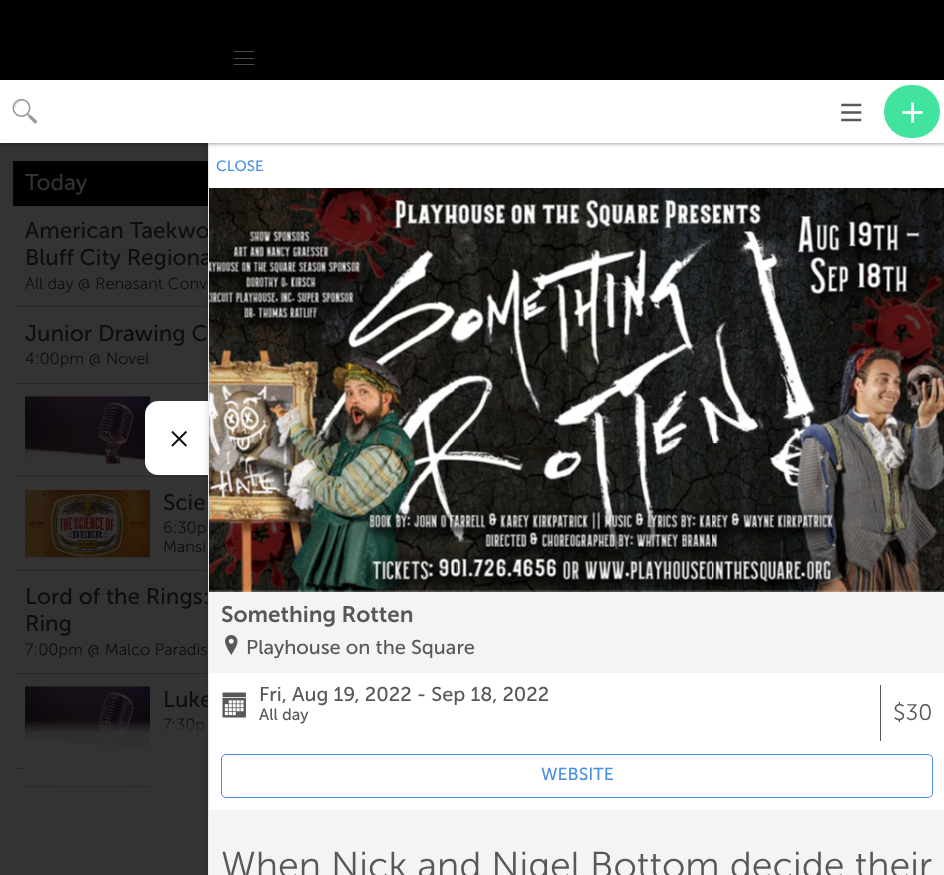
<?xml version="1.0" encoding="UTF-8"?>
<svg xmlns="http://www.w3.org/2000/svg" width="944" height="875">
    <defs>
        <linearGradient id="g1" gradientUnits="userSpaceOnUse" x1="236" y1="786" x2="236" y2="720"><stop offset="0" stop-color="#333333"/><stop offset="0.8" stop-color="#333333" stop-opacity="0.9"/><stop offset="1" stop-color="#333333" stop-opacity="0"/></linearGradient>
        <clipPath id="clip1"><rect x="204" y="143" width="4" height="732"/></clipPath>
        <filter id="blur1" x="-50%" y="-200%" width="200%" height="500%"><feGaussianBlur stdDeviation="2.5"/></filter>
    </defs>
    <rect width="100%" height="100%" fill="#333333"/>
    <text font-family="Museo Sans" font-size="22.5" fill="#0E0E0E">
        <tspan x="25" y="238">American Taekwo</tspan>
        <tspan x="25" y="265">Bluff City Regiona</tspan>
    </text>
    <text x="163" y="707" font-family="Museo Sans" font-size="22.5" fill="#0E0E0E">Luke</text>
    <rect x="13" y="161" width="195" height="45" fill="#000000"/>
    <rect x="13" y="306" width="195" height="1" fill="#292929"/>
    <rect x="13" y="383" width="195" height="1" fill="#292929"/>
    <rect x="13" y="476" width="195" height="1" fill="#292929"/>
    <rect x="13" y="570" width="195" height="1" fill="#292929"/>
    <rect x="13" y="673" width="195" height="1" fill="#292929"/>
    <rect x="13" y="768" width="195" height="1" fill="#292929"/>
    <image x="25" y="686" width="125" height="68" href="img_04.png"/>
    <text x="163" y="730" font-family="Museo Sans" font-size="16.25" font-weight="300" fill="#0E0E0E">7:30p</text>
    <image x="25" y="781" width="125" height="6" href="img_06.png"/>
    <rect x="25" y="721" width="183" height="65" fill="url(#g1)"/>
    <rect x="485" y="599" width="448" height="1" fill="#292929"/>
    <image x="25" y="396" width="125" height="68" href="img_04.png"/>
    <path d="M 158 401 H 208 V 475 H 158 C 151 475 145 469 145 462 V 414 C 145 407 151 401 158 401 Z" fill="#FFFFFF"/>
    <g clip-path="url(#clip1)">
        <rect x="205" y="141" width="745" height="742" fill="#000000" fill-opacity="0.06" filter="url(#blur1)"/>
    </g>
    <rect x="208" y="143" width="1" height="732" fill="#E8E9EA"/>
    <rect x="209" y="143" width="735" height="45" fill="#FFFFFF"/>
    <rect x="0" y="80" width="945" height="63" fill="#000000" fill-opacity="0.5" filter="url(#blur1)"/>
    <rect x="0" y="0" width="944" height="80" fill="#000000"/>
    <rect x="234" y="51" width="20" height="1" fill="#4A4A4A"/>
    <rect x="234" y="58" width="20" height="1" fill="#4A4A4A"/>
    <rect x="234" y="64" width="20" height="1" fill="#4A4A4A"/>
    <rect x="0" y="80" width="944" height="63" fill="#FFFFFF"/>
    <image x="12" y="99" width="26" height="25" href="img_01.png"/>
    <image x="841" y="103" width="21" height="19" href="img_02.png"/>
    <rect x="884" y="85" width="56" height="53" rx="26.5" fill="#42E39E"/>
    <image x="902" y="102" width="21" height="21" href="img_03.png"/>
    <text x="25" y="190" font-family="Museo Sans" font-size="22.5" fill="#333333">Today</text>
    <text x="25" y="289" font-family="Museo Sans" font-size="16.25" font-weight="300" fill="#0E0E0E">All day @ Renasant Conv</text>
    <text x="25" y="341" font-family="Museo Sans" font-size="22.5" fill="#0E0E0E">Junior Drawing C</text>
    <text x="25" y="364" font-family="Museo Sans" font-size="16.25" font-weight="300" fill="#0E0E0E">4:00pm @ Novel</text>
    <image x="25" y="490" width="125" height="68" href="img_05.png"/>
    <text x="163" y="510" font-family="Museo Sans" font-size="22.5" fill="#0E0E0E">Scie</text>
    <text font-family="Museo Sans" font-size="16.25" font-weight="300" fill="#0E0E0E">
        <tspan x="163" y="533">6:30p</tspan>
        <tspan x="163" y="552">Mansi</tspan>
    </text>
    <text font-family="Museo Sans" font-size="22.5" fill="#0E0E0E">
        <tspan x="25" y="604">Lord of the Rings:</tspan>
        <tspan x="25" y="631">Ring</tspan>
    </text>
    <text x="25" y="655" font-family="Museo Sans" font-size="16.25" font-weight="300" fill="#0E0E0E">7:00pm @ Malco Paradis</text>
    <image x="171" y="430" width="16" height="17" href="img_07.png"/>
    <rect x="209" y="590" width="735" height="285" fill="#FFFFFF" fill-opacity="0.95"/>
    <text x="216" y="171" font-family="Museo Sans" font-size="15" fill="#4A90E2">CLOSE</text>
    <image x="209" y="188" width="735" height="404" href="img_08.png"/>
    <text x="221" y="622" font-family="Museo Sans" font-size="22.5" font-weight="600" fill="#575858">Something Rotten</text>
    <image x="225" y="635" width="13" height="20" href="img_09.png"/>
    <text x="246" y="654" font-family="Museo Sans" font-size="20" fill="#575858">Playhouse on the Square</text>
    <rect x="209" y="673" width="735" height="137" fill="#FFFFFF"/>
    <image x="222" y="692" width="24" height="26" href="img_10.png"/>
    <text x="259" y="701" font-family="Museo Sans" font-size="20" fill="#575858">Fri, Aug 19, 2022 - Sep 18, 2022</text>
    <text x="259" y="720" font-family="Museo Sans" font-size="16.25" fill="#575858">All day</text>
    <rect x="880" y="685" width="1" height="56" fill="#575858"/>
    <text x="893" y="720" font-family="Museo Sans" font-size="22.5" font-weight="300" fill="#575858">$30</text>
    <rect x="221.5" y="754.5" width="711" height="43" rx="4.5" fill="none" stroke="#4A90E2"/>
    <text x="541" y="780" font-family="Museo Sans" font-size="17.5" fill="#4A90E2">WEBSITE</text>
    <text x="221" y="878" font-family="Museo Sans" font-size="37.5" font-weight="300" fill="#575858">When Nick and Nigel Bottom decide their</text>
</svg>
